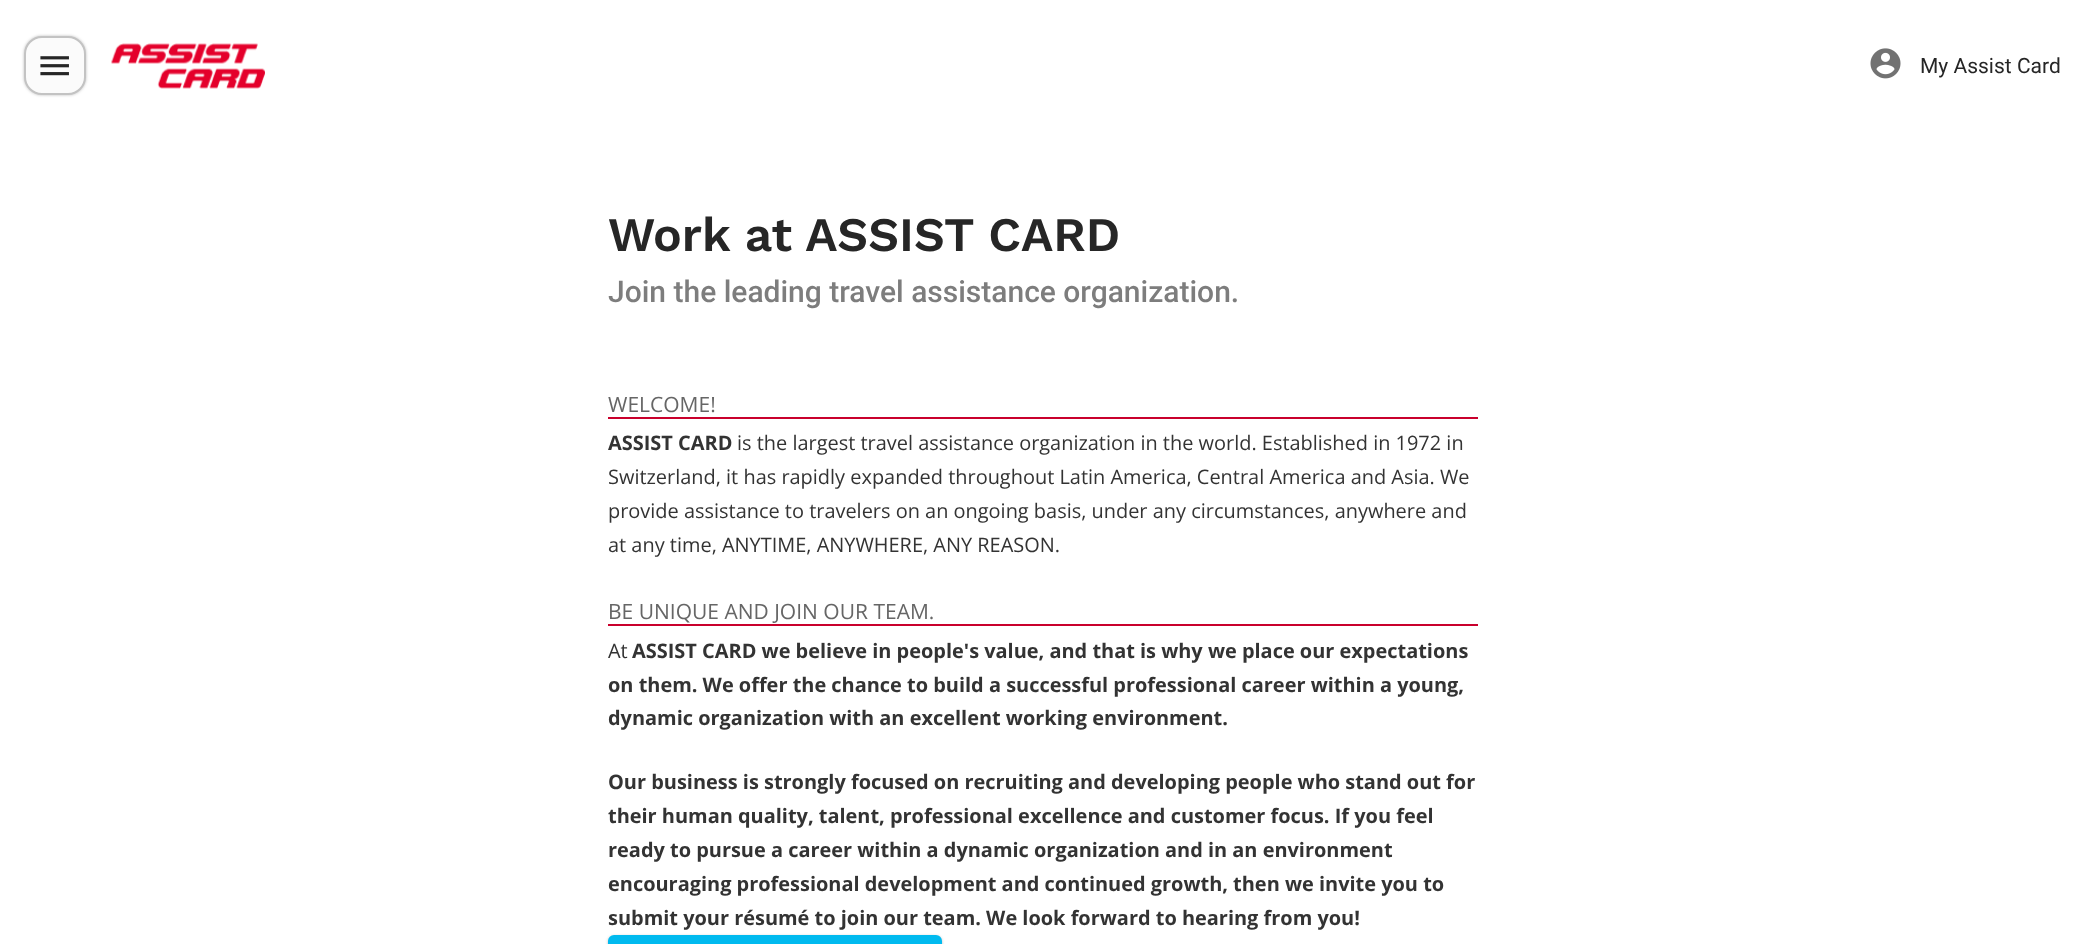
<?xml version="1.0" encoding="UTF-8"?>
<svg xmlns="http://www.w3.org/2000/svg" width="2084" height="944">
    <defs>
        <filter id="blur1" x="-50%" y="-200%" width="200%" height="500%"><feGaussianBlur stdDeviation="1.5"/></filter>
    </defs>
    <rect width="100%" height="100%" fill="#FFFFFF"/>
    <rect x="24" y="36" width="62" height="59" rx="18" fill="#000000" fill-opacity="0.25" filter="url(#blur1)"/>
    <rect x="25" y="37" width="60" height="57" rx="17" fill="#FBFBFB" stroke="#C3C3C3" stroke-width="2"/>
    <image x="40" y="56" width="29" height="20" href="img_01.png"/>
    <image x="111" y="43" width="154" height="46" href="img_02.png"/>
    <image x="1870" y="48" width="31" height="31" href="img_03.png"/>
    <text x="1920" y="73" font-family="Roboto" font-size="21" fill="#262626">My Assist Card</text>
    <text x="608" y="251" font-family="Work Sans" font-size="48" font-weight="600" fill="#262626">Work at ASSIST CARD</text>
    <text x="608" y="302" font-family="Roboto" font-size="30" font-weight="500" fill="#7D7D7D">Join the leading travel assistance organization.</text>
    <rect x="608" y="417" width="870" height="2" fill="#C9002C"/>
    <text x="608" y="412" font-family="Open Sans" font-size="21" fill="#666666">WELCOME!</text>
    <text x="608" y="450" font-family="Open Sans" font-size="19.95" font-weight="700" fill="#333333">ASSIST CARD</text>
    <text x="737" y="450" font-family="Open Sans" font-size="19.95" fill="#333333">is the largest travel assistance organization in the world. Established in 1972 in</text>
    <text font-family="Open Sans" font-size="19.95" fill="#333333">
        <tspan x="608" y="484">Switzerland, it has rapidly expanded throughout Latin America, Central America and Asia. We</tspan>
        <tspan x="608" y="518">provide assistance to travelers on an ongoing basis, under any circumstances, anywhere and</tspan>
        <tspan x="608" y="552">at any time, ANYTIME, ANYWHERE, ANY REASON.</tspan>
    </text>
    <rect x="608" y="624" width="870" height="2" fill="#C9002C"/>
    <text x="608" y="619" font-family="Open Sans" font-size="21" fill="#666666">BE UNIQUE AND JOIN OUR TEAM.</text>
    <text x="608" y="658" font-family="Open Sans" font-size="19.95" fill="#333333">At</text>
    <text x="632" y="658" font-family="Open Sans" font-size="19.95" font-weight="700" fill="#333333">ASSIST CARD we believe in people's value, and that is why we place our expectations</text>
    <text font-family="Open Sans" font-size="19.95" font-weight="700" fill="#333333">
        <tspan x="608" y="692">on them. We offer the chance to build a successful professional career within a young,</tspan>
        <tspan x="608" y="725">dynamic organization with an excellent working environment.</tspan>
    </text>
    <text font-family="Open Sans" font-size="19.95" font-weight="700" fill="#333333">
        <tspan x="608" y="789">Our business is strongly focused on recruiting and developing people who stand out for</tspan>
        <tspan x="608" y="823">their human quality, talent, professional excellence and customer focus. If you feel</tspan>
        <tspan x="608" y="857">ready to pursue a career within a dynamic organization and in an environment</tspan>
        <tspan x="608" y="891">encouraging professional development and continued growth, then we invite you to</tspan>
        <tspan x="608" y="925">submit your résumé to join our team. We look forward to hearing from you!</tspan>
    </text>
    <rect x="608" y="936" width="334" height="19" rx="6" fill="#000000" fill-opacity="0.25" filter="url(#blur1)"/>
    <rect x="609" y="936" width="332" height="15" rx="5" fill="#01BAEF" stroke="#01BAEF" stroke-width="2"/>
</svg>
